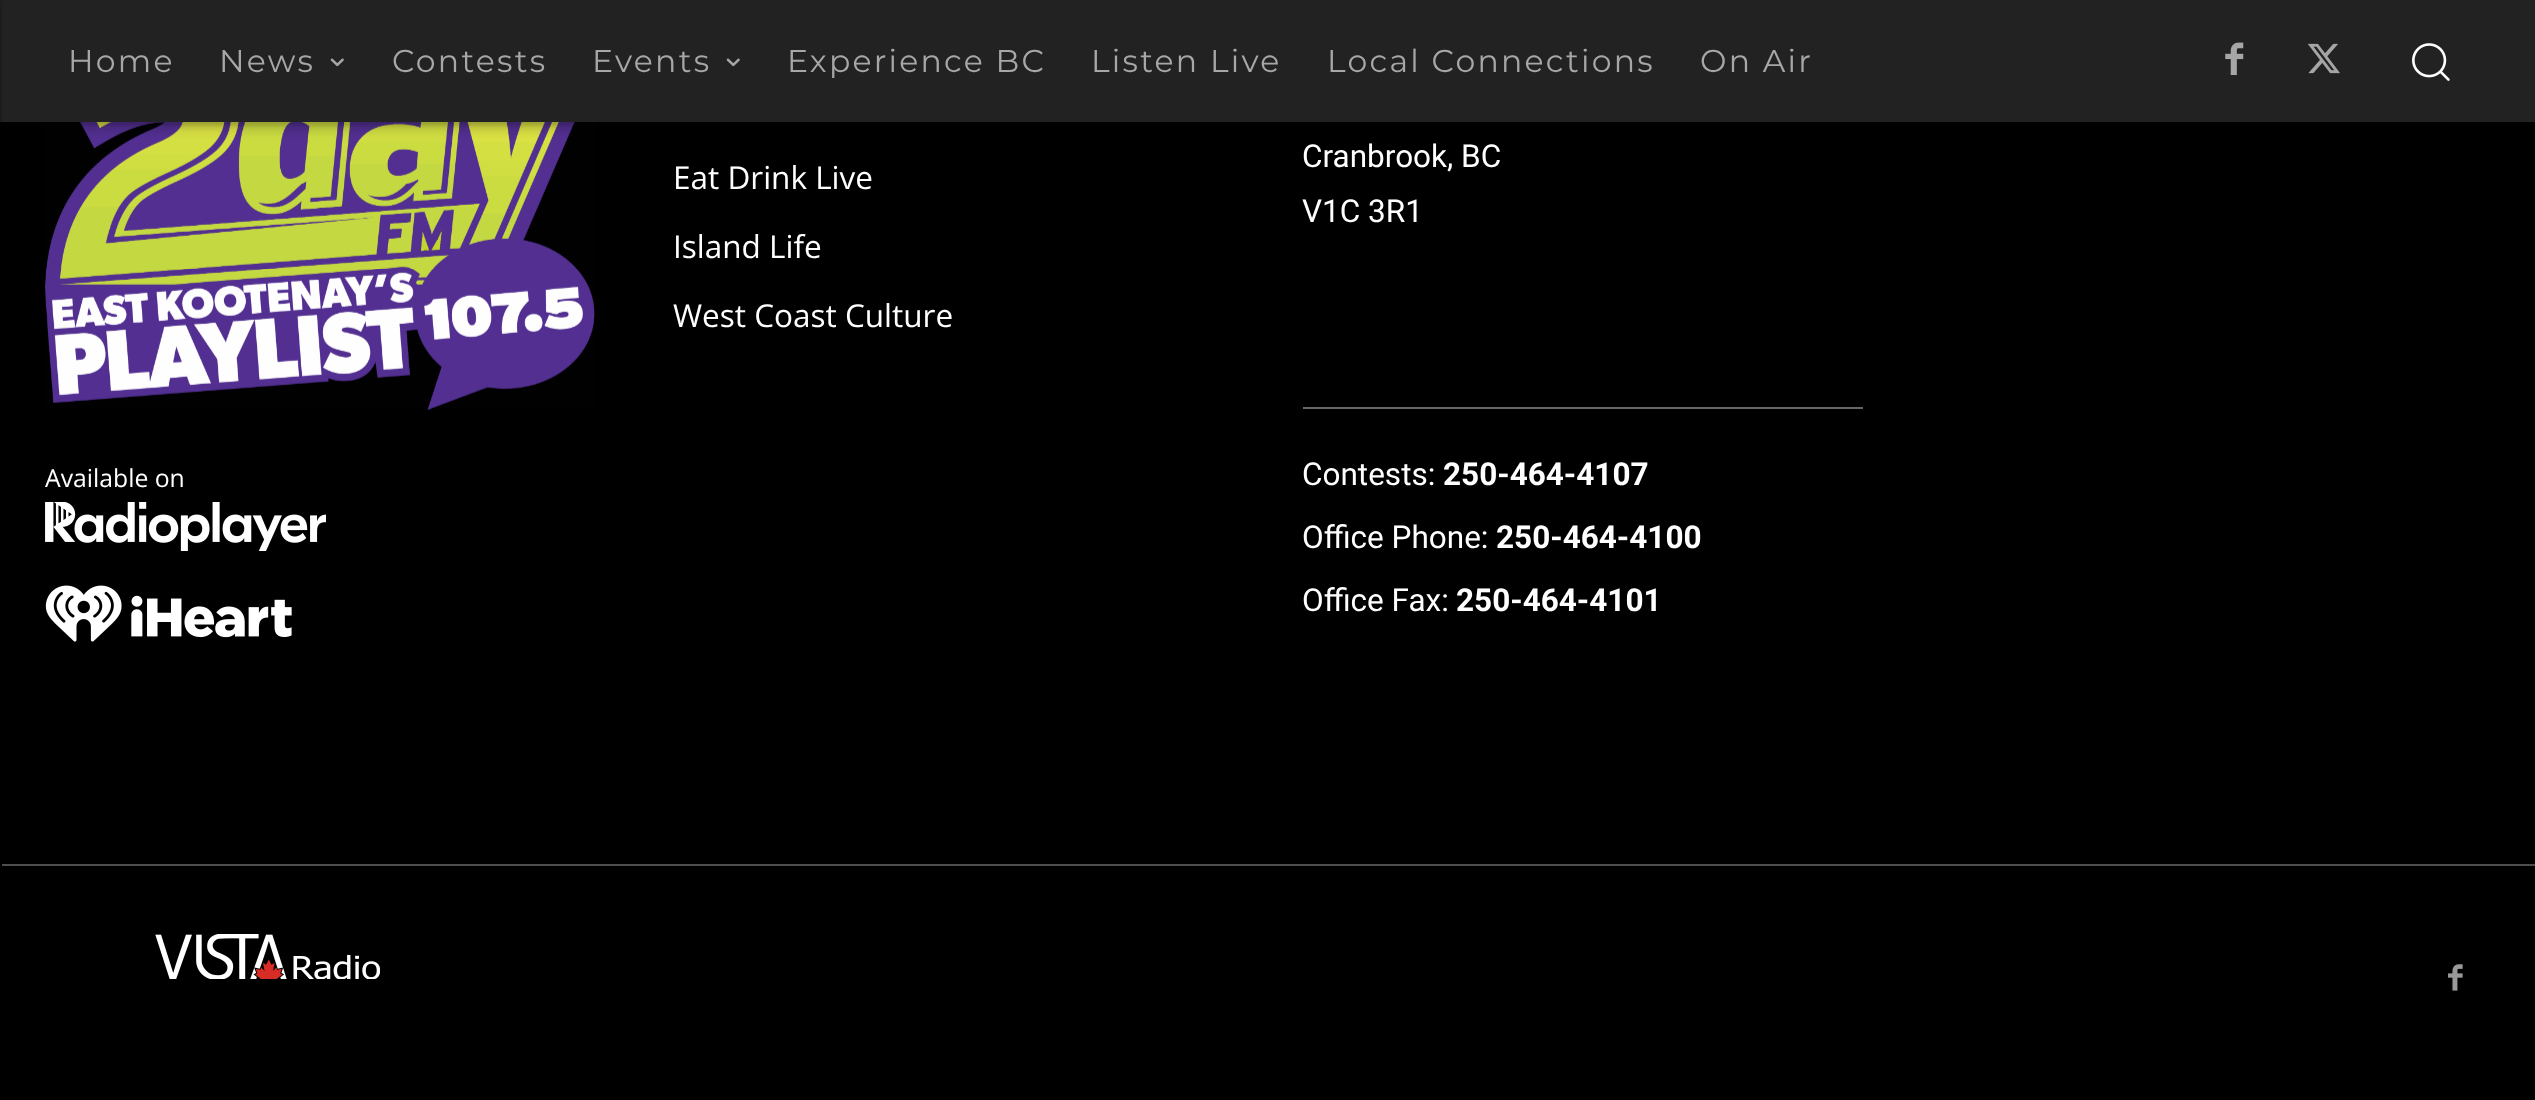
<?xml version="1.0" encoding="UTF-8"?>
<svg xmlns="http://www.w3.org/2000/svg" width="2535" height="1100">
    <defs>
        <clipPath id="clip1"><path d="M 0 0 H 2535 V 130 H 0 Z M 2 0 H 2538 V 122 H 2 Z" clip-rule="evenodd"/></clipPath>
        <filter id="blur1" x="-50%" y="-200%" width="200%" height="500%"><feGaussianBlur stdDeviation="1"/></filter>
        <clipPath id="clip2"><path d="M 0 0 H 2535 V 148 H 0 Z M 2 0 H 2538 V 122 H 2 Z" clip-rule="evenodd"/></clipPath>
        <filter id="blur2" x="-50%" y="-200%" width="200%" height="500%"><feGaussianBlur stdDeviation="7"/></filter>
    </defs>
    <rect width="100%" height="100%" fill="#000000"/>
    <rect x="0" y="0" width="2535" height="122" fill="#222222"/>
    <image x="330" y="58" width="14" height="9" href="img_01.png"/>
    <image x="726" y="58" width="14" height="9" href="img_01.png"/>
    <image x="2225" y="42" width="19" height="33" href="img_02.png"/>
    <image x="2308" y="43" width="32" height="31" href="img_03.png"/>
    <image x="45" y="122" width="550" height="288" href="img_05.png"/>
    <g clip-path="url(#clip1)">
        <rect x="0" y="0" width="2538" height="126" fill="#000000" fill-opacity="0.08" filter="url(#blur1)"/>
    </g>
    <g clip-path="url(#clip2)">
        <rect x="2" y="5" width="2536" height="121" fill="#000000" fill-opacity="0.3" filter="url(#blur2)"/>
    </g>
    <text x="68" y="72" font-family="Montserrat" font-size="31.5" letter-spacing="2.25" fill="#A7A7A7">Home</text>
    <text x="219" y="72" font-family="Montserrat" font-size="31.5" letter-spacing="2.25" fill="#A7A7A7">News</text>
    <text x="392" y="72" font-family="Montserrat" font-size="31.5" letter-spacing="2.25" fill="#A7A7A7">Contests</text>
    <text x="592" y="72" font-family="Montserrat" font-size="31.5" letter-spacing="2.25" fill="#A7A7A7">Events</text>
    <text x="787" y="72" font-family="Montserrat" font-size="31.5" letter-spacing="2.25" fill="#A7A7A7">Experience BC</text>
    <text x="1091" y="72" font-family="Montserrat" font-size="31.5" letter-spacing="2.25" fill="#A7A7A7">Listen Live</text>
    <text x="1327" y="72" font-family="Montserrat" font-size="31.5" letter-spacing="2.25" fill="#A7A7A7">Local Connections</text>
    <text x="1700" y="72" font-family="Montserrat" font-size="31.5" letter-spacing="2.25" fill="#A7A7A7">On Air</text>
    <image x="2412" y="43" width="38" height="38" href="img_04.png"/>
    <text x="673" y="189" font-family="Open Sans" font-size="31.5" fill="#FFFFFF">Eat Drink Live</text>
    <text x="673" y="258" font-family="Open Sans" font-size="31.5" fill="#FFFFFF">Island Life</text>
    <text x="673" y="327" font-family="Open Sans" font-size="31.5" fill="#FFFFFF">West Coast Culture</text>
    <text font-family="Roboto" font-size="31.5" fill="#FFFFFF">
        <tspan x="1302" y="167">Cranbrook, BC</tspan>
        <tspan x="1302" y="222">V1C 3R1</tspan>
    </text>
    <rect x="1303" y="407" width="560" height="2" fill="#666666"/>
    <text x="1302" y="485" font-family="Roboto" font-size="31.5" fill="#FFFFFF">Contests:</text>
    <text x="1443" y="485" font-family="Roboto" font-size="31.5" font-weight="700" fill="#FFFFFF">250-464-4107</text>
    <text x="1302" y="548" font-family="Roboto" font-size="31.5" fill="#FFFFFF">Office Phone:</text>
    <text x="1496" y="548" font-family="Roboto" font-size="31.5" font-weight="700" fill="#FFFFFF">250-464-4100</text>
    <text x="1302" y="611" font-family="Roboto" font-size="31.5" fill="#FFFFFF">Office Fax:</text>
    <text x="1456" y="611" font-family="Roboto" font-size="31.5" font-weight="700" fill="#FFFFFF">250-464-4101</text>
    <text x="45" y="487" font-family="Open Sans" font-size="24.75" fill="#FFFFFF">Available on</text>
    <image x="45" y="502" width="281" height="49" href="img_06.png"/>
    <image x="45" y="585" width="247" height="57" href="img_07.png"/>
    <rect x="2" y="864" width="2533" height="2" fill="#4D4D4D"/>
    <image x="155" y="934" width="225" height="45" href="img_08.png"/>
    <image x="2448" y="964" width="15" height="27" href="img_09.png"/>
</svg>
